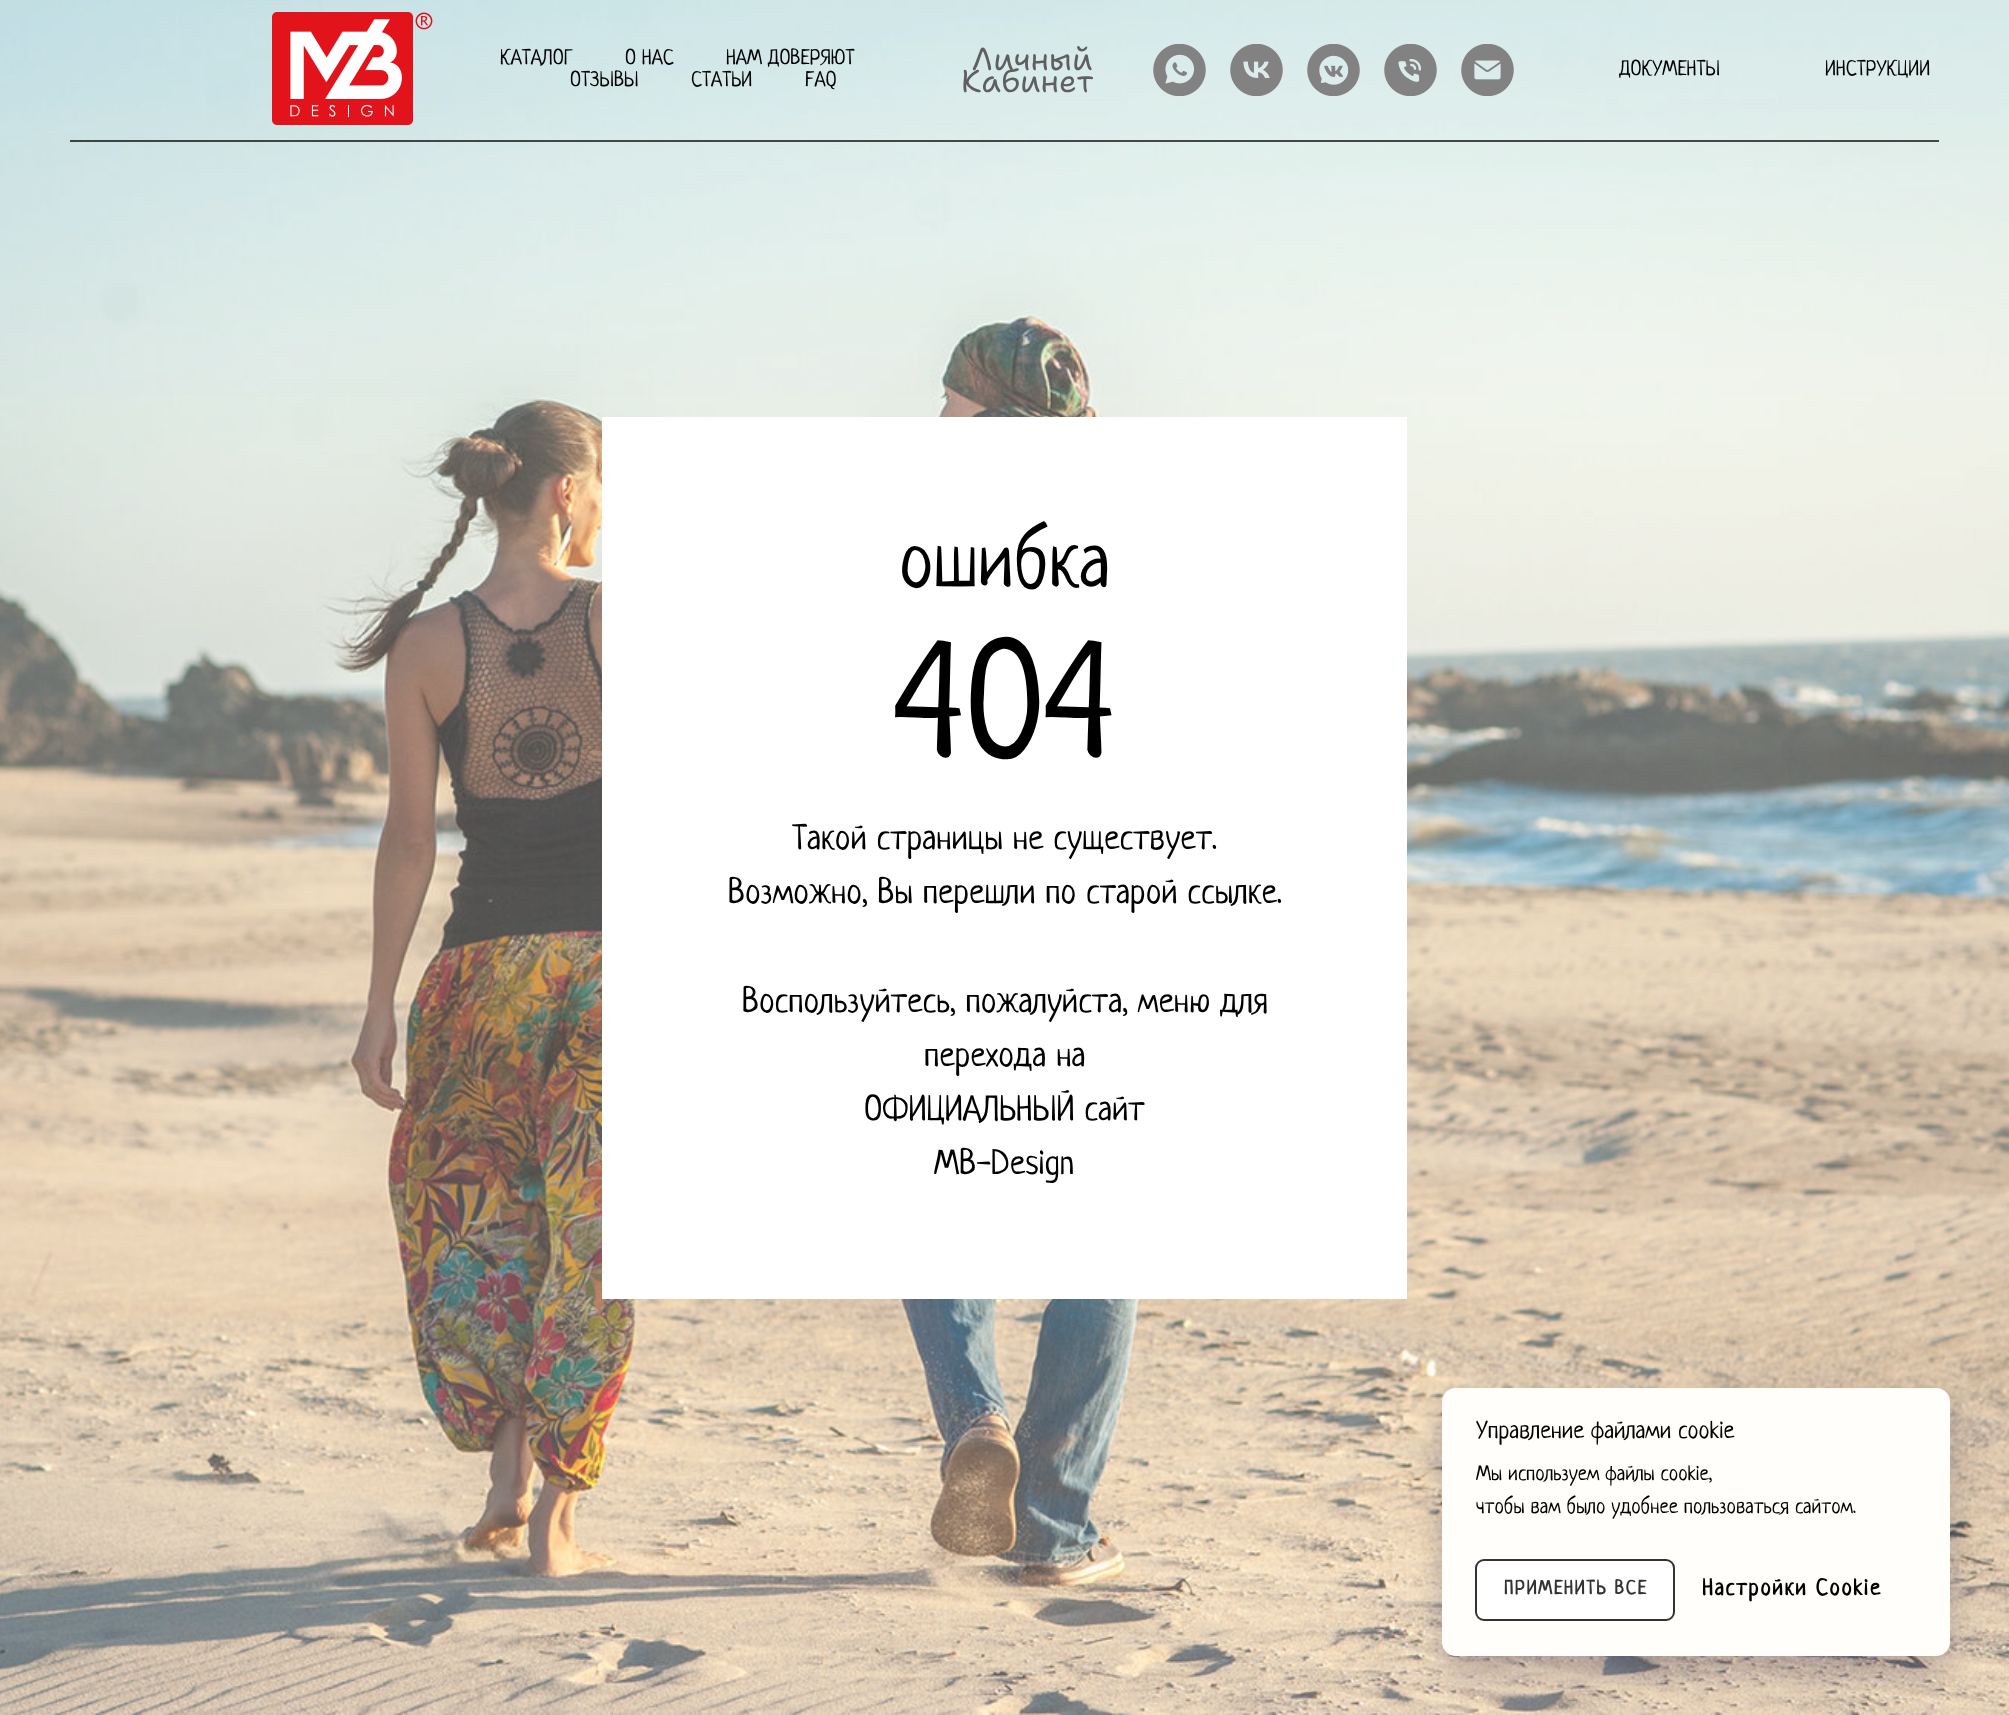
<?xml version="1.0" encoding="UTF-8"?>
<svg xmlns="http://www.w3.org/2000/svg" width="2009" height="1715">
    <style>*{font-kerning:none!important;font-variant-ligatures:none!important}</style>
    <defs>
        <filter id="blur1" x="-50%" y="-200%" width="200%" height="500%"><feGaussianBlur stdDeviation="17.5"/></filter>
    </defs>
    <rect width="100%" height="100%" fill="#FFFFFF"/>
    <image x="0" y="0" width="2009" height="1715" href="img_07.png"/>
    <image x="272" y="12" width="161" height="113" href="img_01.png"/>
    <text x="500" y="64" font-family="Neucha" font-size="21" fill="#000000">КАТАЛОГ</text>
    <text x="625" y="64" font-family="Neucha" font-size="21" fill="#000000">О НАС</text>
    <text x="726" y="64" font-family="Neucha" font-size="21" fill="#000000">НАМ ДОВЕРЯЮТ</text>
    <text x="570" y="86" font-family="Neucha" font-size="21" fill="#000000">ОТЗЫВЫ</text>
    <text x="691" y="86" font-family="Neucha" font-size="21" fill="#000000">СТАТЬИ</text>
    <text x="805" y="86" font-family="Neucha" font-size="21" fill="#000000">FAQ</text>
    <text x="972" y="70" font-family="Shantell Sans" font-size="31.5" fill="#5F5F5F">Личный</text>
    <text x="961" y="92" font-family="Shantell Sans" font-size="31.5" fill="#5F5F5F">Кабинет</text>
    <image x="1153" y="44" width="53" height="52" href="img_02.png"/>
    <image x="1230" y="44" width="53" height="52" href="img_03.png"/>
    <image x="1307" y="44" width="53" height="52" href="img_04.png"/>
    <image x="1384" y="44" width="53" height="52" href="img_05.png"/>
    <image x="1461" y="44" width="53" height="52" href="img_06.png"/>
    <text x="1619" y="75" font-family="Neucha" font-size="21" fill="#000000">ДОКУМЕНТЫ</text>
    <text x="1825" y="75" font-family="Neucha" font-size="21" fill="#000000">ИНСТРУКЦИИ</text>
    <rect x="70" y="140" width="1869" height="2" fill="#000000" fill-opacity="0.7"/>
    <rect x="602" y="417" width="805" height="882" fill="#FFFFFF"/>
    <text x="899" y="586" font-family="Neucha" font-size="77" fill="#000000">ошибка</text>
    <text x="895" y="754" font-family="Neucha" font-size="161" fill="#000000">404</text>
    <text x="792" y="849" font-family="Neucha" font-size="35" fill="#000000">Такой страницы не существует.</text>
    <text x="728" y="903" font-family="Neucha" font-size="35" fill="#000000">Возможно, Вы перешли по старой ссылке.</text>
    <text x="742" y="1012" font-family="Neucha" font-size="35" fill="#000000">Воспользуйтесь, пожалуйста, меню для</text>
    <text x="924" y="1066" font-family="Neucha" font-size="35" fill="#000000">перехода на</text>
    <text x="864" y="1120" font-family="Neucha" font-size="35" fill="#000000">ОФИЦИАЛЬНЫЙ сайт</text>
    <text x="934" y="1174" font-family="Neucha" font-size="35" fill="#000000">MB-Design</text>
    <rect x="1442" y="1405" width="508" height="268" rx="14" fill="#000B30" fill-opacity="0.25" filter="url(#blur1)"/>
    <rect x="1442" y="1388" width="508" height="268" rx="14" fill="#FFFEFA"/>
    <text x="1476" y="1438" font-family="Neucha" font-size="24.5" fill="#000000">Управление файлами cookie</text>
    <text font-family="Neucha" font-size="21" fill="#000000">
        <tspan x="1476" y="1480">Мы используем файлы cookie,</tspan>
        <tspan x="1476" y="1513">чтобы вам было удобнее пользоваться сайтом.</tspan>
    </text>
    <rect x="1476" y="1560" width="198" height="60" rx="8" fill="#FFFFFF" stroke="#333333" stroke-width="2"/>
    <text x="1504" y="1594" font-family="Neucha" font-size="19.25" font-weight="700" letter-spacing="1.75" fill="#333333">ПРИМЕНИТЬ ВСЕ</text>
    <text x="1702" y="1595" font-family="Neucha" font-size="22.75" font-weight="700" letter-spacing="1.75" fill="#000000">Настройки Cookie</text>
</svg>
